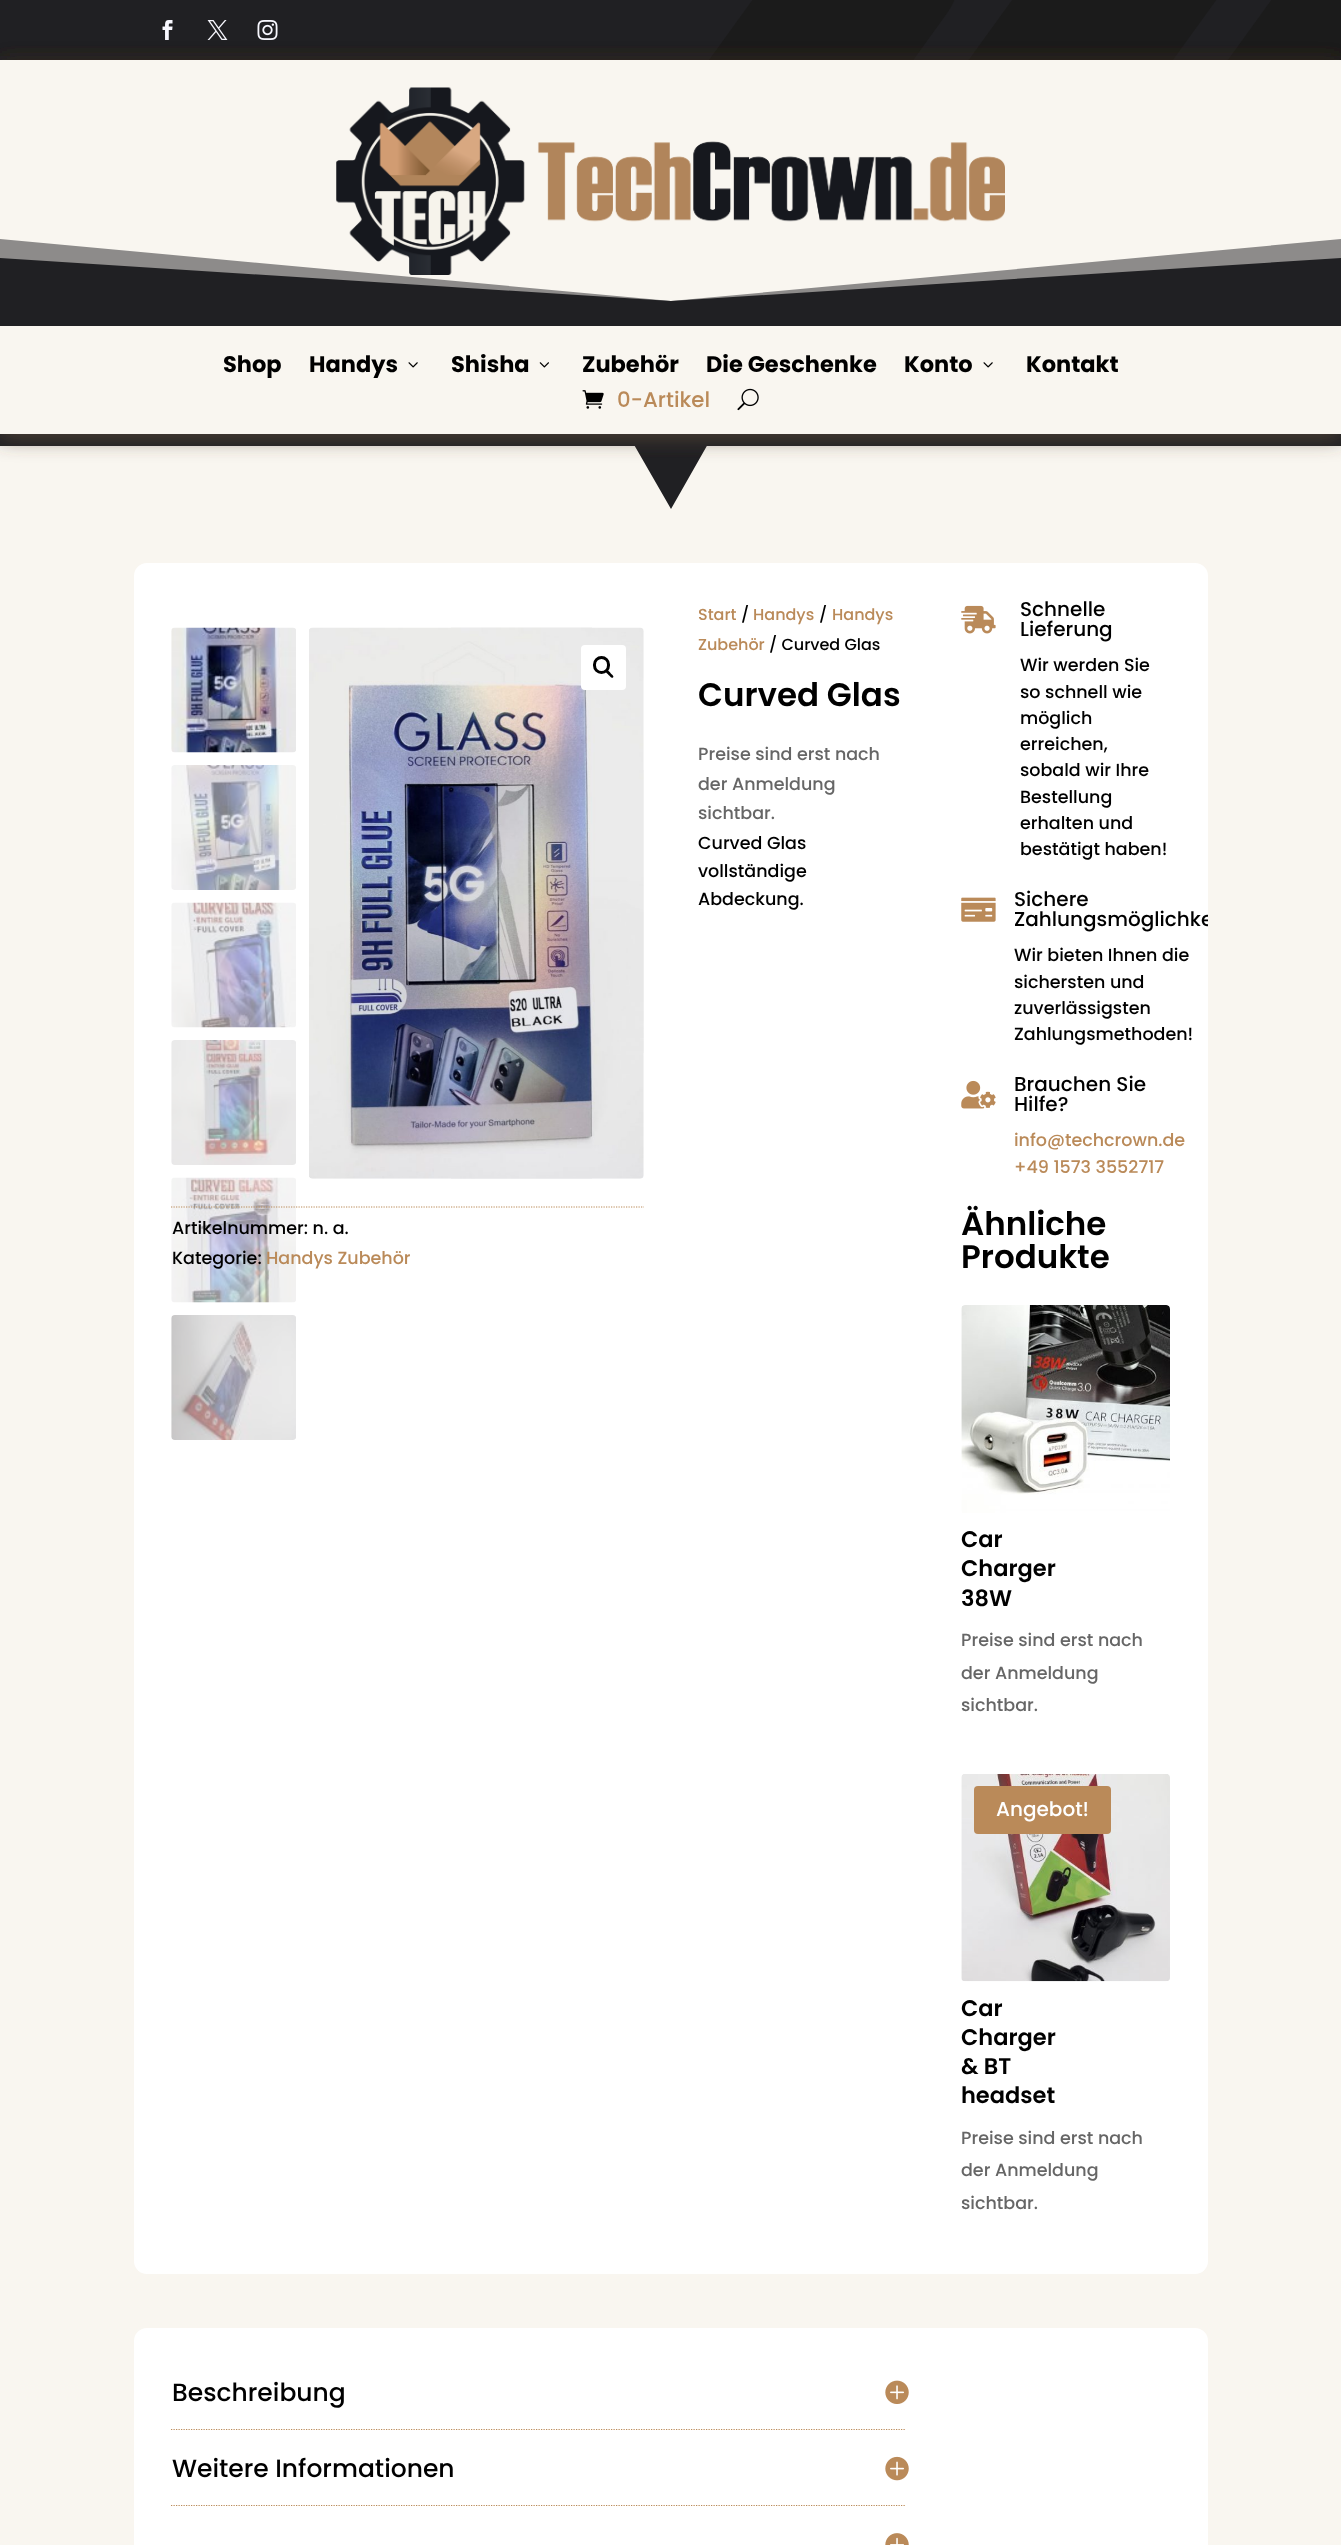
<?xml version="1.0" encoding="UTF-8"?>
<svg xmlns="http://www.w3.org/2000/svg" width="1341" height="2545">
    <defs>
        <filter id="blur1" x="-50%" y="-200%" width="200%" height="500%"><feGaussianBlur stdDeviation="11"/></filter>
        <clipPath id="clip1"><rect x="0" y="446" width="1341" height="63"/></clipPath>
        <clipPath id="clip2"><rect x="134" y="563" width="1074" height="1711" rx="13"/></clipPath>
    </defs>
    <rect width="100%" height="100%" fill="#F9F6F0"/>
    <rect x="0" y="0" width="1272" height="60" fill="#202023"/>
    <image x="162" y="20" width="11" height="20" href="img_01.png"/>
    <image x="207" y="20" width="21" height="20" href="img_02.png"/>
    <image x="257" y="20" width="21" height="20" href="img_03.png"/>
    <image x="709" y="0" width="632" height="60" href="img_04.png"/>
    <rect x="0" y="63" width="1341" height="241" fill="#392B1B" filter="url(#blur1)"/>
    <rect x="0" y="60" width="1341" height="241" fill="#F9F6F0"/>
    <path d="M 671 301 L 0 239 V 301 H 1341 V 239 Z" fill="#8D8B8A"/>
    <path d="M 671 301 L 0 258 V 301 H 1341 V 258 Z" fill="#202023"/>
    <image x="336" y="87" width="669" height="188" href="img_05.png"/>
    <rect x="0" y="434" width="1341" height="75" fill="#202023"/>
    <g clip-path="url(#clip1)">
        <path d="M 754 363 L 671 509 L 587 363 H 0 V 509 H 1341 V 363 Z" fill="#F9F6F0"/>
    </g>
    <rect x="0" y="329" width="1341" height="107" fill="#524438" filter="url(#blur1)"/>
    <rect x="0" y="301" width="1341" height="25" fill="#202023"/>
    <rect x="0" y="326" width="1341" height="108" fill="#F9F6F0"/>
    <text x="223" y="372" font-family="Poppins" font-size="22.5" font-weight="700" fill="#000000">Shop</text>
    <text x="309" y="372" font-family="Poppins" font-size="22.5" font-weight="700" fill="#000000">Handys</text>
    <image x="408" y="362" width="10" height="6" href="img_06.png"/>
    <text x="451" y="372" font-family="Poppins" font-size="22.5" font-weight="700" fill="#000000">Shisha</text>
    <image x="539" y="362" width="10" height="6" href="img_07.png"/>
    <text x="582" y="372" font-family="Poppins" font-size="22.5" font-weight="700" fill="#000000">Zubehör</text>
    <text x="706" y="372" font-family="Poppins" font-size="22.5" font-weight="700" fill="#000000">Die Geschenke</text>
    <text x="904" y="372" font-family="Poppins" font-size="22.5" font-weight="700" fill="#000000">Konto</text>
    <image x="983" y="362" width="10" height="6" href="img_06.png"/>
    <text x="1026" y="372" font-family="Poppins" font-size="22.5" font-weight="700" fill="#000000">Kontakt</text>
    <image x="582" y="390" width="22" height="19" href="img_08.png"/>
    <text x="617" y="407" font-family="Poppins" font-size="21.25" font-weight="500" fill="#BA8A59">0-Artikel</text>
    <image x="737" y="388" width="22" height="23" href="img_09.png"/>
    <rect x="134" y="563" width="1074" height="1711" rx="13" fill="#FFFFFF"/>
    <text x="698" y="620" font-family="Poppins" font-size="16" font-weight="500" fill="#BA8A59">Start</text>
    <text x="741" y="620" font-family="Poppins" font-size="16" font-weight="500" fill="#000000">/</text>
    <text x="753" y="620" font-family="Poppins" font-size="16" font-weight="500" fill="#BA8A59">Handys</text>
    <text x="819" y="620" font-family="Poppins" font-size="16" font-weight="500" fill="#000000">/</text>
    <text x="832" y="620" font-family="Poppins" font-size="16" font-weight="500" fill="#BA8A59">Handys</text>
    <text x="698" y="650" font-family="Poppins" font-size="16" font-weight="500" fill="#BA8A59">Zubehör</text>
    <text x="769" y="650" font-family="Poppins" font-size="16" font-weight="500" fill="#000000">/ Curved Glas</text>
    <text x="698" y="706" font-family="Poppins" font-size="32.5" font-weight="600" fill="#000000">Curved Glas</text>
    <text font-family="Poppins" font-size="17.5" font-weight="500" fill="#666666">
        <tspan x="698" y="760">Preise sind erst nach</tspan>
        <tspan x="698" y="790">der Anmeldung</tspan>
        <tspan x="698" y="819">sichtbar.</tspan>
    </text>
    <text font-family="Poppins" font-size="17.5" font-weight="500" fill="#000000">
        <tspan x="698" y="849">Curved Glas</tspan>
        <tspan x="698" y="877">vollständige</tspan>
        <tspan x="698" y="905">Abdeckung.</tspan>
    </text>
    <image x="961" y="605" width="35" height="29" href="img_10.png"/>
    <text font-family="Poppins" font-size="20" font-weight="500" fill="#000000">
        <tspan x="1020" y="616">Schnelle</tspan>
        <tspan x="1020" y="636">Lieferung</tspan>
    </text>
    <text font-family="Poppins" font-size="17.5" font-weight="500" fill="#000000">
        <tspan x="1020" y="671">Wir werden Sie</tspan>
        <tspan x="1020" y="698">so schnell wie</tspan>
        <tspan x="1020" y="724">möglich</tspan>
        <tspan x="1020" y="750">erreichen,</tspan>
        <tspan x="1020" y="776">sobald wir Ihre</tspan>
        <tspan x="1020" y="803">Bestellung</tspan>
        <tspan x="1020" y="829">erhalten und</tspan>
        <tspan x="1020" y="855">bestätigt haben!</tspan>
    </text>
    <image x="961" y="897" width="35" height="25" href="img_11.png"/>
    <text x="1014" y="906" font-family="Poppins" font-size="20" font-weight="500" fill="#000000">Sichere</text>
    <g clip-path="url(#clip2)">
        <text x="1014" y="926" font-family="Poppins" font-size="20" font-weight="500" fill="#000000">Zahlungsmöglichke</text>
    </g>
    <text font-family="Poppins" font-size="17.5" font-weight="500" fill="#000000">
        <tspan x="1014" y="961">Wir bieten Ihnen die</tspan>
        <tspan x="1014" y="988">sichersten und</tspan>
        <tspan x="1014" y="1014">zuverlässigsten</tspan>
        <tspan x="1014" y="1040">Zahlungsmethoden!</tspan>
    </text>
    <image x="961" y="1080" width="35" height="29" href="img_12.png"/>
    <text font-family="Poppins" font-size="20" font-weight="500" fill="#000000">
        <tspan x="1014" y="1091">Brauchen Sie</tspan>
        <tspan x="1014" y="1111">Hilfe?</tspan>
    </text>
    <text font-family="Poppins" font-size="17.5" font-weight="500" fill="#BA8A59">
        <tspan x="1014" y="1146">info@techcrown.de</tspan>
        <tspan x="1014" y="1173">+49 1573 3552717</tspan>
    </text>
    <text font-family="Poppins" font-size="32.5" font-weight="600" fill="#000000">
        <tspan x="961" y="1235">Ähnliche</tspan>
        <tspan x="961" y="1268">Produkte</tspan>
    </text>
    <image x="961" y="1305" width="209" height="208" href="img_13.png"/>
    <text font-family="Poppins" font-size="22.5" font-weight="600" fill="#000000">
        <tspan x="961" y="1547">Car</tspan>
        <tspan x="961" y="1576">Charger</tspan>
        <tspan x="961" y="1606">38W</tspan>
    </text>
    <text font-family="Poppins" font-size="17.5" font-weight="500" fill="#666666">
        <tspan x="961" y="1646">Preise sind erst nach</tspan>
        <tspan x="961" y="1679">der Anmeldung</tspan>
        <tspan x="961" y="1711">sichtbar.</tspan>
    </text>
    <image x="961" y="1774" width="209" height="208" href="img_14.png"/>
    <rect x="974" y="1786" width="137" height="48" rx="4" fill="#BA8A59"/>
    <text x="996" y="1816" font-family="Poppins" font-size="20" font-weight="500" fill="#FFFFFF">Angebot!</text>
    <text font-family="Poppins" font-size="22.5" font-weight="600" fill="#000000">
        <tspan x="961" y="2016">Car</tspan>
        <tspan x="961" y="2045">Charger</tspan>
        <tspan x="961" y="2074">&amp; BT</tspan>
        <tspan x="961" y="2103">headset</tspan>
    </text>
    <text font-family="Poppins" font-size="17.5" font-weight="500" fill="#666666">
        <tspan x="961" y="2144">Preise sind erst nach</tspan>
        <tspan x="961" y="2176">der Anmeldung</tspan>
        <tspan x="961" y="2209">sichtbar.</tspan>
    </text>
    <image x="171" y="627" width="125" height="126" href="img_15.png"/>
    <image x="171" y="765" width="125" height="125" href="img_16.png"/>
    <image x="171" y="902" width="125" height="126" href="img_17.png"/>
    <image x="171" y="1040" width="125" height="125" href="img_18.png"/>
    <image x="171" y="1177" width="125" height="126" href="img_19.png"/>
    <image x="171" y="1315" width="125" height="125" href="img_20.png"/>
    <image x="309" y="627" width="335" height="552" href="img_21.png"/>
    <rect x="581" y="645" width="45" height="45" rx="4" fill="#FFFFFF"/>
    <rect x="594.5" y="657.5" width="14" height="15" rx="7" fill="none" stroke="#000000" stroke-width="3"/>
    <path d="M 606 670.5 C 607.5 669 609.5 672 610.5 673 C 611 674 614.5 676 613 677.5 C 611.5 679 609.5 675.5 608.5 675 C 608 674 604.5 672 606 670.5 Z" fill="#000000"/>
    <path d="M 171 1207 H 644" fill="none" stroke="#BA8A59" stroke-width="1.2" stroke-dasharray="1.25 1.25"/>
    <text font-family="Poppins" font-size="17.5" font-weight="500" fill="#000000">
        <tspan x="172" y="1234">Artikelnummer: n. a.</tspan>
        <tspan x="172" y="1264">Kategorie:</tspan>
    </text>
    <text x="266" y="1264" font-family="Poppins" font-size="17.5" font-weight="500" fill="#BA8A59">Handys Zubehör</text>
    <rect x="134" y="2328" width="1074" height="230" rx="13" fill="#FFFFFF"/>
    <path d="M 171 2429.5 H 906" fill="none" stroke="#BA8A59" stroke-width="1.2" stroke-dasharray="1.25 1.25"/>
    <text x="172" y="2401" font-family="Poppins" font-size="25" font-weight="500" fill="#000000">Beschreibung</text>
    <image x="885" y="2380" width="24" height="24" href="img_22.png"/>
    <path d="M 171 2505.5 H 906" fill="none" stroke="#BA8A59" stroke-width="1.2" stroke-dasharray="1.25 1.25"/>
    <text x="172" y="2477" font-family="Poppins" font-size="25" font-weight="500" fill="#000000">Weitere Informationen</text>
    <image x="885" y="2456" width="24" height="25" href="img_23.png"/>
    <image x="885" y="2533" width="24" height="12" href="img_24.png"/>
</svg>
